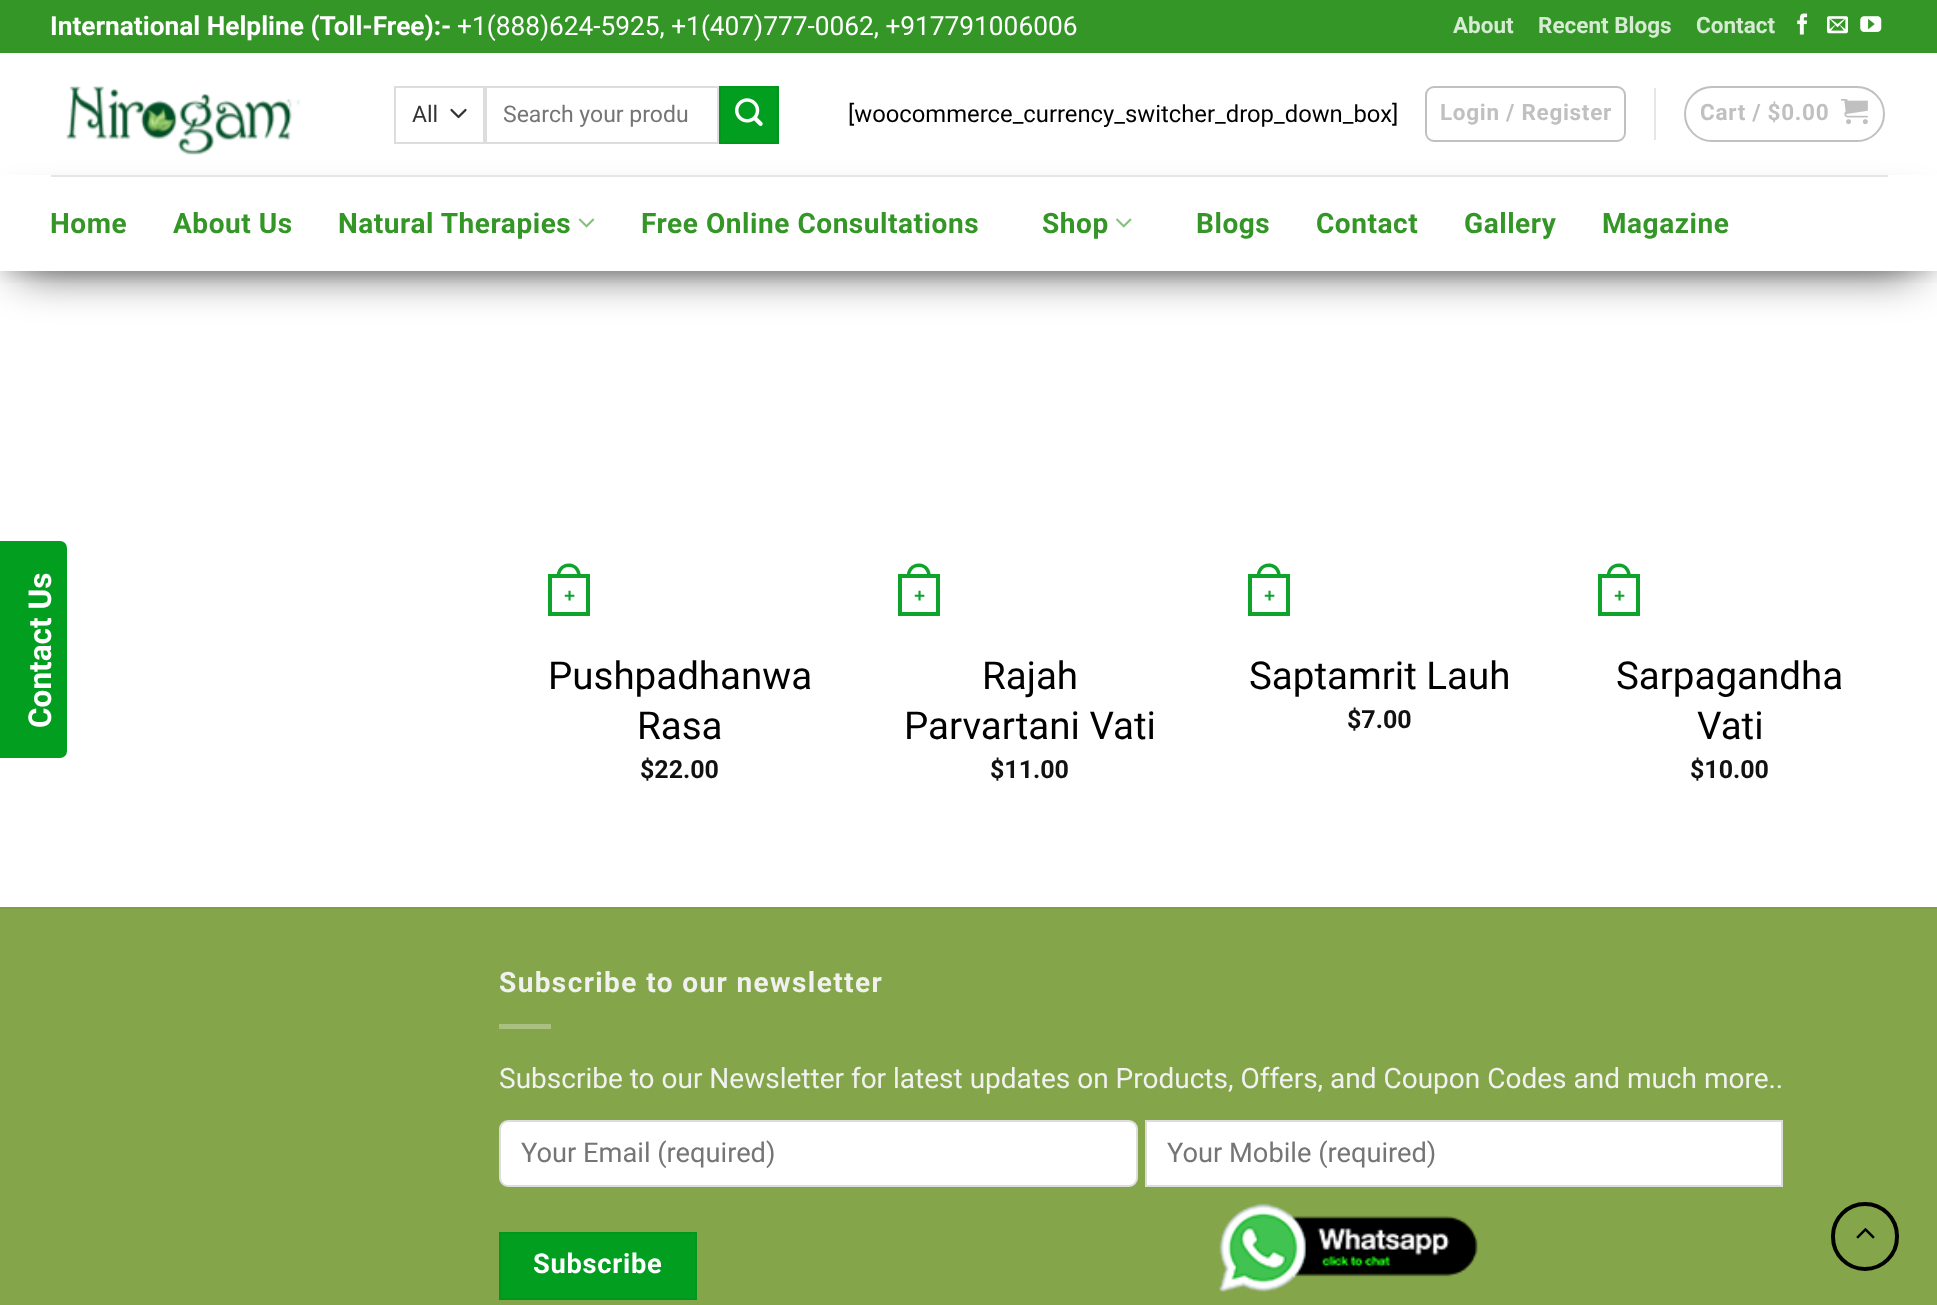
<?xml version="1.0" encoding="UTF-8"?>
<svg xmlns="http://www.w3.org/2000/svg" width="1937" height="1305">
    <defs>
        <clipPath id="clip1"><rect x="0" y="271" width="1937" height="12"/></clipPath>
        <filter id="blur1" x="-50%" y="-200%" width="200%" height="500%"><feGaussianBlur stdDeviation="9"/></filter>
        <clipPath id="clip2"><path d="M 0 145 H 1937 V 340 H 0 Z M 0 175 H 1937 V 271 H 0 Z" clip-rule="evenodd"/></clipPath>
        <filter id="blur2" x="-50%" y="-200%" width="200%" height="500%"><feGaussianBlur stdDeviation="23"/></filter>
    </defs>
    <rect width="100%" height="100%" fill="#FFFFFF"/>
    <path d="M -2 542 H 60 C 63.5 542 66 544.5 66 548 V 751 C 66 754.5 63.5 757 60 757 H -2 Z" fill="#019E20" stroke="#019E20" stroke-width="2"/>
    <text x="51" y="728" transform="rotate(-90 51 728)" font-family="Roboto" font-size="31.5" font-weight="700" fill="#FFFFFF">Contact Us</text>
    <g clip-path="url(#clip1)">
        <rect x="2" y="2" width="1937" height="271" fill="#000000" fill-opacity="0.15" filter="url(#blur1)"/>
    </g>
    <rect x="0" y="0" width="1937" height="53" fill="#349627"/>
    <text x="50" y="35" font-family="Roboto" font-size="26.25" font-weight="700" fill="#FFFFFF">International Helpline (Toll-Free):-</text>
    <text x="457" y="35" font-family="Roboto" font-size="26.25" fill="#FFFFFF">+1(888)624-5925, +1(407)777-0062, +917791006006</text>
    <text x="1453" y="33" font-family="Roboto" font-size="22.5" font-weight="700" fill="#D6EAD4">About</text>
    <text x="1538" y="33" font-family="Roboto" font-size="22.5" font-weight="700" fill="#D6EAD4">Recent Blogs</text>
    <text x="1696" y="33" font-family="Roboto" font-size="22.5" font-weight="700" fill="#D6EAD4">Contact</text>
    <image x="1797" y="13" width="11" height="22" href="img_01.png"/>
    <image x="1827" y="16" width="21" height="18" href="img_02.png"/>
    <image x="1860" y="16" width="22" height="16" href="img_03.png"/>
    <g clip-path="url(#clip2)">
        <rect x="19" y="215" width="1896" height="55" fill="#000000" fill-opacity="0.75" filter="url(#blur2)"/>
    </g>
    <image x="66" y="86" width="235" height="69" href="img_04.png"/>
    <path d="M 451.5 110 L 458.5 117 L 465.5 110" fill="none" stroke="#333333" stroke-width="2.3" stroke-linecap="round" stroke-linejoin="round"/>
    <rect x="395" y="87" width="89" height="56" fill="none" stroke="#DDDDDD" stroke-width="2"/>
    <text x="412" y="122" font-family="Roboto" font-size="23" fill="#333333">All</text>
    <rect x="486" y="87" width="232" height="56" fill="none" stroke="#DDDDDD" stroke-width="2"/>
    <text x="503" y="122" font-family="Roboto" font-size="23" fill="#757575">Search your produ</text>
    <rect x="720" y="87" width="58" height="56" fill="#019E20" stroke="#01961E" stroke-width="2"/>
    <image x="735" y="98" width="28" height="28" href="img_05.png"/>
    <text x="848" y="122" font-family="Roboto" font-size="23.8" fill="#000000">[woocommerce_currency_switcher_drop_down_box]</text>
    <rect x="1426" y="87" width="199" height="54" rx="8" fill="none" stroke="#C0C0C0" stroke-width="2"/>
    <text x="1440" y="120" font-family="Roboto" font-size="22.5" font-weight="700" letter-spacing="0.7" fill="#C0C0C0">Login / Register</text>
    <rect x="1654" y="88" width="2" height="52" fill="#E6E6E6"/>
    <rect x="1685" y="87" width="199" height="54" rx="27" fill="none" stroke="#C0C0C0" stroke-width="2"/>
    <text x="1700" y="120" font-family="Roboto" font-size="22.5" font-weight="700" letter-spacing="0.7" fill="#C0C0C0">Cart / $0.00</text>
    <image x="1841" y="99" width="27" height="26" href="img_06.png"/>
    <rect x="51" y="175" width="1837" height="2" fill="#E6E6E6"/>
    <text x="50" y="233" font-family="Roboto" font-size="28" font-weight="700" letter-spacing="0.55" fill="#349627">Home</text>
    <text x="173" y="233" font-family="Roboto" font-size="28" font-weight="700" letter-spacing="0.55" fill="#349627">About Us</text>
    <text x="338" y="233" font-family="Roboto" font-size="28" font-weight="700" letter-spacing="0.55" fill="#349627">Natural Therapies</text>
    <image x="578" y="218" width="17" height="10" href="img_07.png"/>
    <text x="641" y="233" font-family="Roboto" font-size="28" font-weight="700" letter-spacing="0.55" fill="#349627">Free Online Consultations</text>
    <text x="1042" y="233" font-family="Roboto" font-size="28" font-weight="700" letter-spacing="0.55" fill="#349627">Shop</text>
    <image x="1116" y="218" width="16" height="10" href="img_08.png"/>
    <text x="1196" y="233" font-family="Roboto" font-size="28" font-weight="700" letter-spacing="0.55" fill="#349627">Blogs</text>
    <text x="1316" y="233" font-family="Roboto" font-size="28" font-weight="700" letter-spacing="0.55" fill="#349627">Contact</text>
    <text x="1464" y="233" font-family="Roboto" font-size="28" font-weight="700" letter-spacing="0.55" fill="#349627">Gallery</text>
    <text x="1602" y="233" font-family="Roboto" font-size="28" font-weight="700" letter-spacing="0.55" fill="#349627">Magazine</text>
    <rect x="550" y="576" width="38" height="38" fill="none" stroke="#0EA32B" stroke-width="4"/>
    <path d="M 569 563.5 C 577 563.5 581 570 581 577.5 H 556.5 C 556.5 570 560.5 563.5 569 563.5 Z M 569 567 C 575 567 577.5 572 577.5 577.5 H 560 C 560 572 562.5 567 569 567 Z" fill="#0EA32B" fill-rule="evenodd"/>
    <text x="564" y="602" font-family="Liberation Sans" font-size="19" font-weight="700" fill="#0EA32B">+</text>
    <text x="548" y="689" font-family="Roboto" font-size="38.5" fill="#000000">Pushpadhanwa</text>
    <text x="637" y="739" font-family="Roboto" font-size="38.5" fill="#000000">Rasa</text>
    <text x="640" y="778" font-family="Roboto" font-size="25" font-weight="700" fill="#111111">$22.00</text>
    <rect x="900" y="576" width="38" height="38" fill="none" stroke="#0EA32B" stroke-width="4"/>
    <path d="M 919 563.5 C 927 563.5 931 570 931 577.5 H 906.5 C 906.5 570 910.5 563.5 919 563.5 Z M 919 567 C 925 567 927.5 572 927.5 577.5 H 910 C 910 572 912.5 567 919 567 Z" fill="#0EA32B" fill-rule="evenodd"/>
    <text x="914" y="602" font-family="Liberation Sans" font-size="19" font-weight="700" fill="#0EA32B">+</text>
    <text x="982" y="689" font-family="Roboto" font-size="38.5" fill="#000000">Rajah</text>
    <text x="904" y="739" font-family="Roboto" font-size="38.5" fill="#000000">Parvartani Vati</text>
    <text x="990" y="778" font-family="Roboto" font-size="25" font-weight="700" fill="#111111">$11.00</text>
    <rect x="1250" y="576" width="38" height="38" fill="none" stroke="#0EA32B" stroke-width="4"/>
    <path d="M 1269 563.5 C 1277 563.5 1281 570 1281 577.5 H 1256.5 C 1256.5 570 1260.5 563.5 1269 563.5 Z M 1269 567 C 1275 567 1277.5 572 1277.5 577.5 H 1260 C 1260 572 1262.5 567 1269 567 Z" fill="#0EA32B" fill-rule="evenodd"/>
    <text x="1264" y="602" font-family="Liberation Sans" font-size="19" font-weight="700" fill="#0EA32B">+</text>
    <text x="1249" y="689" font-family="Roboto" font-size="38.5" fill="#000000">Saptamrit Lauh</text>
    <text x="1347" y="728" font-family="Roboto" font-size="25" font-weight="700" fill="#111111">$7.00</text>
    <rect x="1600" y="576" width="38" height="38" fill="none" stroke="#0EA32B" stroke-width="4"/>
    <path d="M 1619 563.5 C 1627 563.5 1631 570 1631 577.5 H 1606.5 C 1606.5 570 1610.5 563.5 1619 563.5 Z M 1619 567 C 1625 567 1627.5 572 1627.5 577.5 H 1610 C 1610 572 1612.5 567 1619 567 Z" fill="#0EA32B" fill-rule="evenodd"/>
    <text x="1614" y="602" font-family="Liberation Sans" font-size="19" font-weight="700" fill="#0EA32B">+</text>
    <text x="1616" y="689" font-family="Roboto" font-size="38.5" fill="#000000">Sarpagandha</text>
    <text x="1697" y="739" font-family="Roboto" font-size="38.5" fill="#000000">Vati</text>
    <text x="1690" y="778" font-family="Roboto" font-size="25" font-weight="700" fill="#111111">$10.00</text>
    <rect x="0" y="909" width="1937" height="396" fill="#84A54A"/>
    <rect x="0" y="907" width="1937" height="2" fill="#7D9D46"/>
    <text x="499" y="992" font-family="Roboto" font-size="28" font-weight="700" letter-spacing="1.4" fill="#F1F1F1">Subscribe to our newsletter</text>
    <rect x="499" y="1024" width="52" height="5" fill="#A9C080"/>
    <text x="499" y="1088" font-family="Roboto" font-size="28" fill="#F1F1F1">Subscribe to our Newsletter for latest updates on Products, Offers, and Coupon Codes and much more..</text>
    <rect x="500" y="1121" width="637" height="65" rx="8" fill="#FFFFFF" stroke="#DDDDDD" stroke-width="2"/>
    <text x="521" y="1162" font-family="Roboto" font-size="27.25" fill="#757575">Your Email (required)</text>
    <rect x="1146" y="1121" width="636" height="65" fill="#FFFFFF" stroke="#DDDDDD" stroke-width="2"/>
    <text x="1167" y="1162" font-family="Roboto" font-size="27.25" fill="#757575">Your Mobile (required)</text>
    <rect x="500" y="1233" width="196" height="66" fill="#019E20" stroke="#01961E" stroke-width="2"/>
    <text x="533" y="1273" font-family="Roboto" font-size="27.25" font-weight="700" letter-spacing="0.75" fill="#FFFFFF">Subscribe</text>
    <rect x="1833" y="1204" width="64" height="65" rx="32" fill="none" stroke="#000000" stroke-width="4"/>
    <image x="1856" y="1228" width="19" height="11" href="img_09.png"/>
    <image x="1219" y="1203" width="259" height="89" href="img_10.png"/>
</svg>
